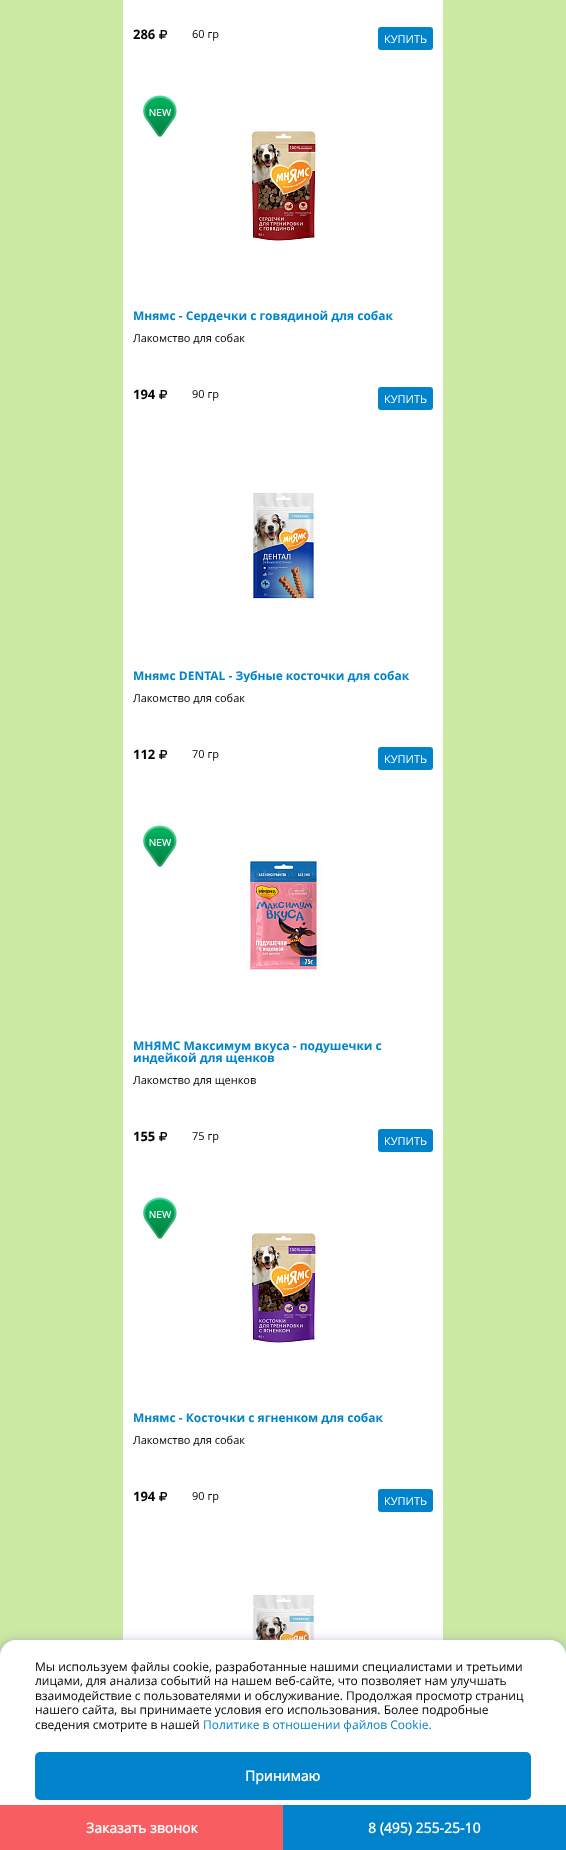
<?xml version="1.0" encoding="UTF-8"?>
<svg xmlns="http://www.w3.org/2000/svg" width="566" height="1850">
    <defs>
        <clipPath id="clip1"><rect x="133" y="310" width="300" height="12"/></clipPath>
        <clipPath id="clip2"><rect x="133" y="670" width="300" height="12"/></clipPath>
        <clipPath id="clip3"><rect x="133" y="1040" width="300" height="24"/></clipPath>
        <clipPath id="clip4"><rect x="133" y="1412" width="300" height="12"/></clipPath>
        <filter id="blur1" x="-50%" y="-200%" width="200%" height="500%"><feGaussianBlur stdDeviation="4.5"/></filter>
    </defs>
    <rect width="100%" height="100%" fill="#CBE9A2"/>
    <rect x="123" y="0" width="320" height="1640" fill="#FFFFFF"/>
    <text x="133" y="39" font-family="Open Sans" font-size="13" font-weight="700" fill="#000000">286</text>
    <image x="159" y="30" width="9" height="9" href="img_01.png"/>
    <text x="192" y="38" font-family="Open Sans" font-size="11" fill="#000000">60 гр</text>
    <rect x="378" y="27" width="55" height="23" rx="3" fill="#0083CB"/>
    <text x="384" y="43" font-family="Open Sans" font-size="11" fill="#FFFFFF">КУПИТЬ</text>
    <image x="143" y="95" width="34" height="42" href="img_02.png"/>
    <image x="252" y="130" width="64" height="111" href="img_03.png"/>
    <g clip-path="url(#clip1)">
        <text x="133" y="320" font-family="Open Sans" font-size="12" font-weight="700" fill="#0083CB">Мнямс - Сердечки с говядиной для собак</text>
    </g>
    <text x="133" y="342" font-family="Open Sans" font-size="11" fill="#000000">Лакомство для собак</text>
    <text x="133" y="399" font-family="Open Sans" font-size="13" font-weight="700" fill="#000000">194</text>
    <image x="159" y="390" width="9" height="9" href="img_01.png"/>
    <text x="192" y="398" font-family="Open Sans" font-size="11" fill="#000000">90 гр</text>
    <rect x="378" y="387" width="55" height="23" rx="3" fill="#0083CB"/>
    <text x="384" y="403" font-family="Open Sans" font-size="11" fill="#FFFFFF">КУПИТЬ</text>
    <image x="252" y="492" width="64" height="109" href="img_04.png"/>
    <g clip-path="url(#clip2)">
        <text x="133" y="680" font-family="Open Sans" font-size="12" font-weight="700" fill="#0083CB">Мнямс DENTAL - Зубные косточки для собак</text>
    </g>
    <text x="133" y="702" font-family="Open Sans" font-size="11" fill="#000000">Лакомство для собак</text>
    <text x="133" y="759" font-family="Open Sans" font-size="13" font-weight="700" fill="#000000">112</text>
    <image x="159" y="750" width="9" height="9" href="img_01.png"/>
    <text x="192" y="758" font-family="Open Sans" font-size="11" fill="#000000">70 гр</text>
    <rect x="378" y="747" width="55" height="23" rx="3" fill="#0083CB"/>
    <text x="384" y="763" font-family="Open Sans" font-size="11" fill="#FFFFFF">КУПИТЬ</text>
    <image x="143" y="825" width="34" height="42" href="img_02.png"/>
    <image x="244" y="860" width="80" height="111" href="img_05.png"/>
    <text x="133" y="1050" font-family="Open Sans" font-size="12" font-weight="700" fill="#0083CB">МНЯМС Максимум вкуса - подушечки с</text>
    <g clip-path="url(#clip3)">
        <text x="133" y="1062" font-family="Open Sans" font-size="12" font-weight="700" fill="#0083CB">индейкой для щенков</text>
    </g>
    <text x="133" y="1084" font-family="Open Sans" font-size="11" fill="#000000">Лакомство для щенков</text>
    <text x="133" y="1141" font-family="Open Sans" font-size="13" font-weight="700" fill="#000000">155</text>
    <image x="159" y="1132" width="9" height="9" href="img_01.png"/>
    <text x="192" y="1140" font-family="Open Sans" font-size="11" fill="#000000">75 гр</text>
    <rect x="378" y="1129" width="55" height="23" rx="3" fill="#0083CB"/>
    <text x="384" y="1145" font-family="Open Sans" font-size="11" fill="#FFFFFF">КУПИТЬ</text>
    <image x="143" y="1197" width="34" height="42" href="img_02.png"/>
    <image x="252" y="1232" width="64" height="111" href="img_06.png"/>
    <g clip-path="url(#clip4)">
        <text x="133" y="1422" font-family="Open Sans" font-size="12" font-weight="700" fill="#0083CB">Мнямс - Косточки с ягненком для собак</text>
    </g>
    <text x="133" y="1444" font-family="Open Sans" font-size="11" fill="#000000">Лакомство для собак</text>
    <text x="133" y="1501" font-family="Open Sans" font-size="13" font-weight="700" fill="#000000">194</text>
    <image x="159" y="1492" width="9" height="9" href="img_01.png"/>
    <text x="192" y="1500" font-family="Open Sans" font-size="11" fill="#000000">90 гр</text>
    <rect x="378" y="1489" width="55" height="23" rx="3" fill="#0083CB"/>
    <text x="384" y="1505" font-family="Open Sans" font-size="11" fill="#FFFFFF">КУПИТЬ</text>
    <image x="252" y="1595" width="64" height="45" href="img_07.png"/>
    <rect x="-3" y="1639" width="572" height="186" rx="19" fill="#7364B2" fill-opacity="0.3" filter="url(#blur1)"/>
    <rect x="0" y="1640" width="566" height="180" rx="16" fill="#FFFFFF"/>
    <text font-family="Open Sans" font-size="12" fill="#000000">
        <tspan x="35" y="1671">Мы используем файлы cookie, разработанные нашими специалистами и третьими</tspan>
        <tspan x="35" y="1685">лицами, для анализа событий на нашем веб-сайте, что позволяет нам улучшать</tspan>
        <tspan x="35" y="1700">взаимодействие с пользователями и обслуживание. Продолжая просмотр страниц</tspan>
        <tspan x="35" y="1714">нашего сайта, вы принимаете условия его использования. Более подробные</tspan>
        <tspan x="35" y="1729">сведения смотрите в нашей</tspan>
    </text>
    <text x="203" y="1729" font-family="Open Sans" font-size="12" fill="#0083CB">Политике в отношении файлов Cookie.</text>
    <rect x="35" y="1752" width="496" height="48" rx="5" fill="#0083CB"/>
    <text x="245" y="1781" font-family="'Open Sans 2'" font-size="14" font-weight="700" fill="#FFFFFF">Принимаю</text>
    <rect x="0" y="1805" width="283" height="45" fill="#F85D62"/>
    <text x="86" y="1833" font-family="'Open Sans 2'" font-size="14" font-weight="700" fill="#FFFFFF">Заказать звонок</text>
    <rect x="283" y="1805" width="283" height="45" fill="#0083CB"/>
    <text x="368" y="1833" font-family="'Open Sans 2'" font-size="14" font-weight="700" fill="#FFFFFF">8 (495) 255-25-10</text>
</svg>
